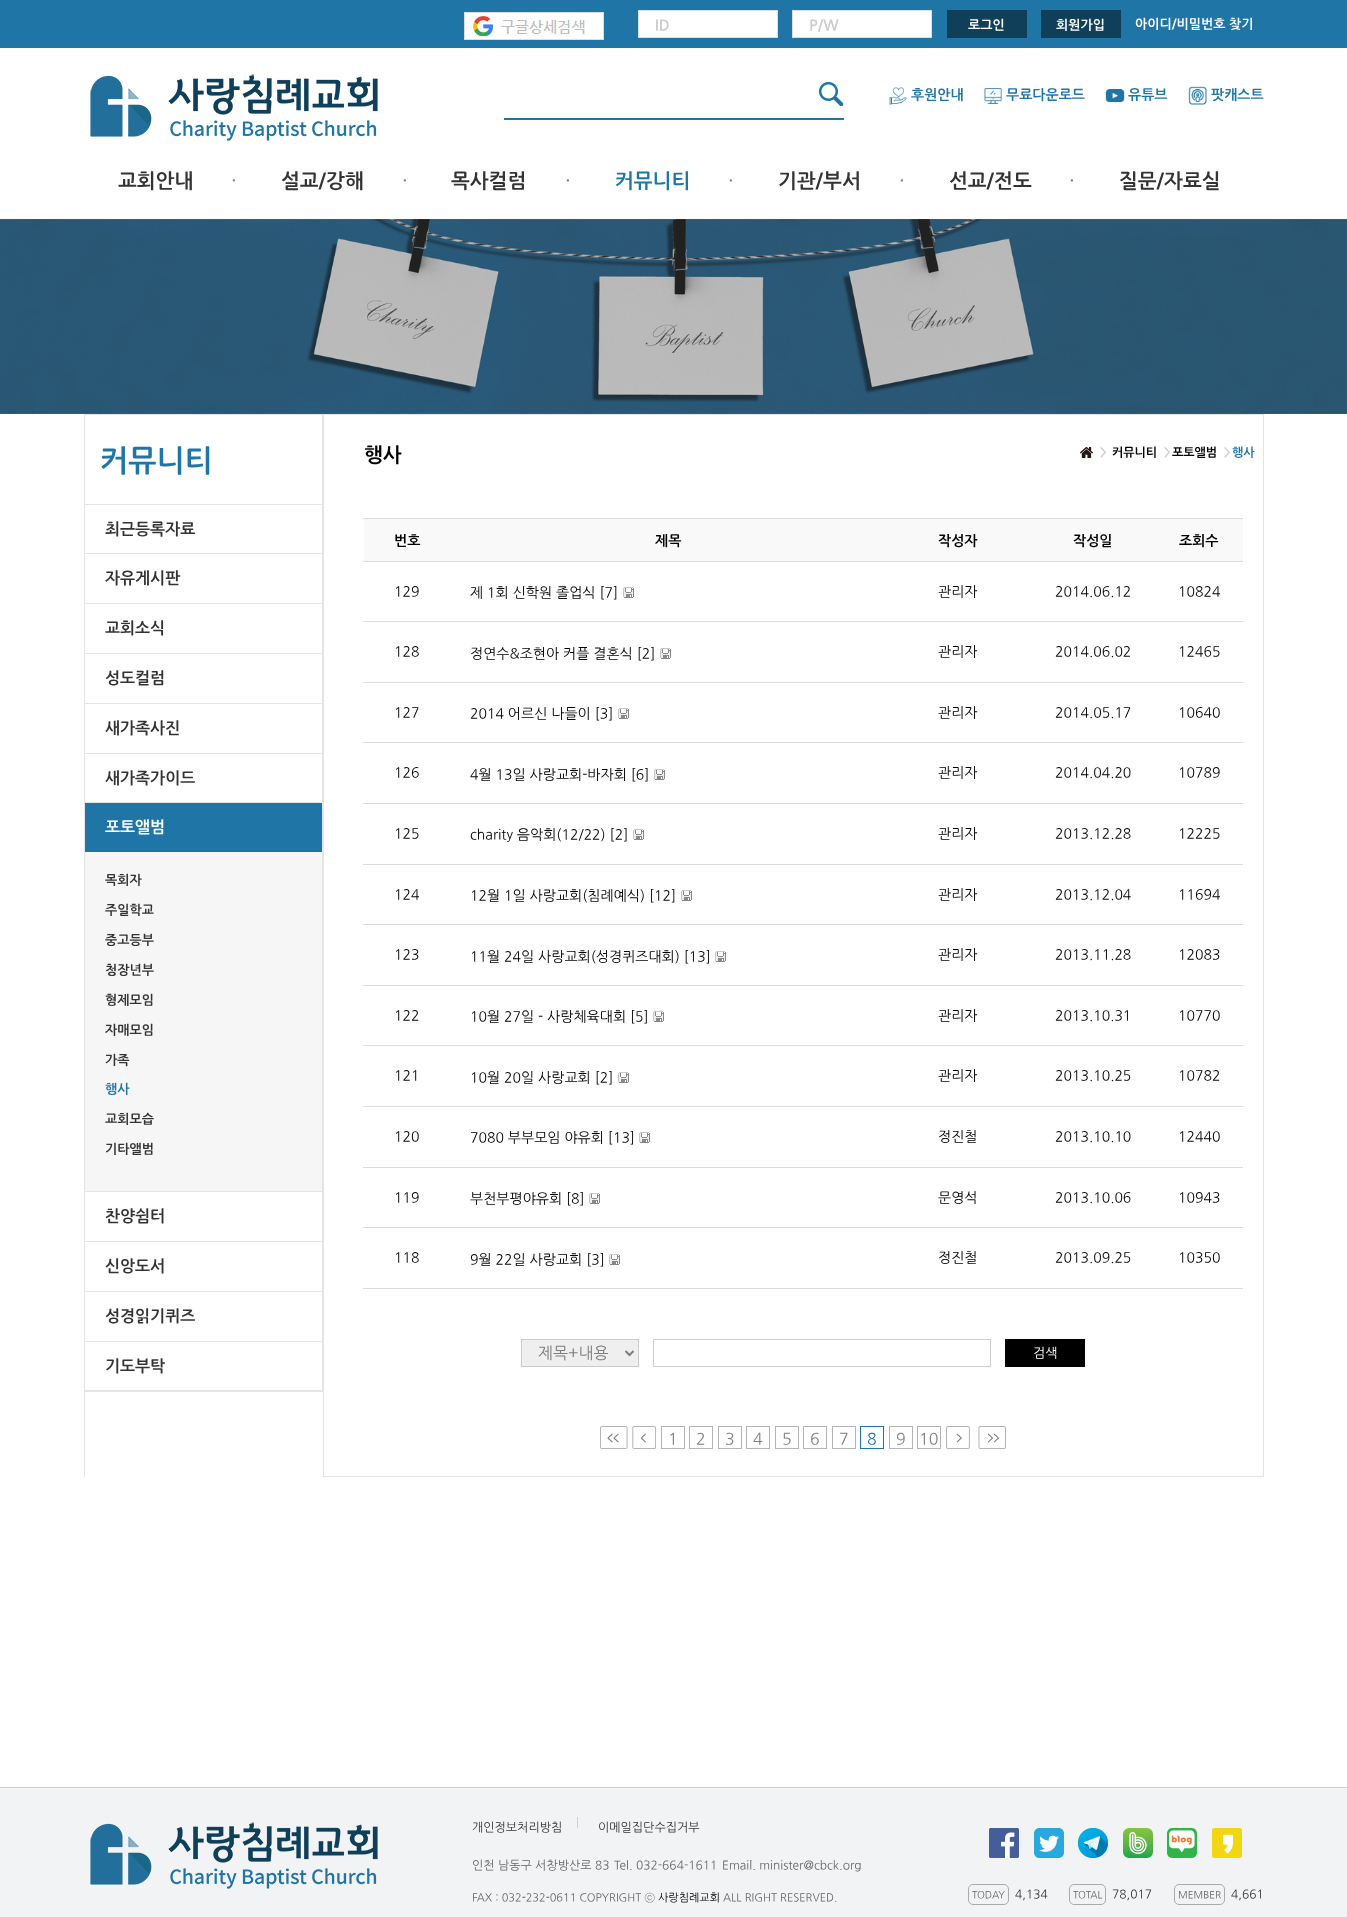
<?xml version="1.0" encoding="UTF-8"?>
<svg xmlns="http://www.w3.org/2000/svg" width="1347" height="1917">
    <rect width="100%" height="100%" fill="#FFFFFF"/>
    <rect x="0" y="0" width="1347" height="48" fill="#1E75A6"/>
    <image x="464" y="12" width="140" height="28" href="img_01.png"/>
    <rect x="638.5" y="10.5" width="139" height="27" fill="#FFFFFF" stroke="#DDDDDD"/>
    <text x="655" y="30" font-family="NanumGothic" font-size="15" font-weight="700" fill="#CCCCCC">ID</text>
    <rect x="792.5" y="10.5" width="139" height="27" fill="#FFFFFF" stroke="#DDDDDD"/>
    <text x="809" y="30" font-family="NanumGothic" font-size="15" font-weight="700" fill="#CCCCCC">P/W</text>
    <rect x="947" y="10" width="80" height="28" fill="#103F5A"/>
    <text x="968" y="29" font-family="NanumGothic" font-size="13" font-weight="700" fill="#FFFFFF">로그인</text>
    <rect x="1041" y="10" width="80" height="28" fill="#103F5A"/>
    <text x="1056" y="29" font-family="NanumGothic" font-size="13" font-weight="700" fill="#FFFFFF">회원가입</text>
    <text x="1135" y="28" font-family="NanumGothic" font-size="13" font-weight="700" fill="#FFFFFF">아이디/비밀번호 찾기</text>
    <image x="90" y="74" width="288" height="67" href="img_02.png"/>
    <image x="819" y="82" width="25" height="24" href="img_03.png"/>
    <rect x="504" y="118" width="340" height="2" fill="#1E75A6"/>
    <image x="889" y="87" width="18" height="18" href="img_04.png"/>
    <text x="911" y="99" font-family="NanumGothic" font-size="14" font-weight="700" fill="#1E75A6">후원안내</text>
    <image x="984" y="88" width="18" height="16" href="img_05.png"/>
    <text x="1006" y="99" font-family="NanumGothic" font-size="14" font-weight="700" fill="#1E75A6">무료다운로드</text>
    <image x="1105" y="89" width="20" height="14" href="img_06.png"/>
    <text x="1128" y="99" font-family="NanumGothic" font-size="14" font-weight="700" fill="#1E75A6">유튜브</text>
    <image x="1188" y="86" width="19" height="19" href="img_07.png"/>
    <text x="1211" y="99" font-family="NanumGothic" font-size="14" font-weight="700" fill="#1E75A6">팟캐스트</text>
    <text x="118" y="187" font-family="NanumGothic" font-size="20" font-weight="700" fill="#333333">교회안내</text>
    <text x="231" y="187" font-family="NanumGothic" font-size="20" fill="#7D7D7D">·</text>
    <text x="281" y="187" font-family="NanumGothic" font-size="20" font-weight="700" fill="#333333">설교/강해</text>
    <text x="402" y="187" font-family="NanumGothic" font-size="20" fill="#7D7D7D">·</text>
    <text x="451" y="187" font-family="NanumGothic" font-size="20" font-weight="700" fill="#333333">목사컬럼</text>
    <text x="565" y="187" font-family="NanumGothic" font-size="20" fill="#7D7D7D">·</text>
    <text x="615" y="187" font-family="NanumGothic" font-size="20" font-weight="700" fill="#1E75A6">커뮤니티</text>
    <text x="728" y="187" font-family="NanumGothic" font-size="20" fill="#7D7D7D">·</text>
    <text x="778" y="187" font-family="NanumGothic" font-size="20" font-weight="700" fill="#333333">기관/부서</text>
    <text x="899" y="187" font-family="NanumGothic" font-size="20" fill="#7D7D7D">·</text>
    <text x="949" y="187" font-family="NanumGothic" font-size="20" font-weight="700" fill="#333333">선교/전도</text>
    <text x="1069" y="187" font-family="NanumGothic" font-size="20" fill="#7D7D7D">·</text>
    <text x="1119" y="187" font-family="NanumGothic" font-size="20" font-weight="700" fill="#333333">질문/자료실</text>
    <image x="0" y="219" width="1347" height="195" href="img_08.png"/>
    <rect x="84" y="414" width="1" height="1063" fill="#E4E4E4"/>
    <rect x="85" y="414" width="238" height="1" fill="#E4E4E4"/>
    <rect x="322" y="414" width="1" height="978" fill="#E4E4E4"/>
    <rect x="85" y="1391" width="238" height="1" fill="#E4E4E4"/>
    <text x="100" y="470" font-family="NanumGothic" font-size="30" font-weight="700" fill="#1E75A6">커뮤니티</text>
    <rect x="85" y="504" width="237" height="1" fill="#E4E4E4"/>
    <rect x="85" y="553" width="237" height="1" fill="#E4E4E4"/>
    <text x="105" y="534" font-family="NanumGothic" font-size="16" font-weight="700" fill="#333333">최근등록자료</text>
    <rect x="85" y="603" width="237" height="1" fill="#E4E4E4"/>
    <text x="105" y="583" font-family="NanumGothic" font-size="16" font-weight="700" fill="#333333">자유게시판</text>
    <rect x="85" y="653" width="237" height="1" fill="#E4E4E4"/>
    <text x="105" y="633" font-family="NanumGothic" font-size="16" font-weight="700" fill="#333333">교회소식</text>
    <rect x="85" y="703" width="237" height="1" fill="#E4E4E4"/>
    <text x="105" y="683" font-family="NanumGothic" font-size="16" font-weight="700" fill="#333333">성도컬럼</text>
    <rect x="85" y="753" width="237" height="1" fill="#E4E4E4"/>
    <text x="105" y="733" font-family="NanumGothic" font-size="16" font-weight="700" fill="#333333">새가족사진</text>
    <rect x="85" y="802" width="237" height="1" fill="#E4E4E4"/>
    <text x="105" y="783" font-family="NanumGothic" font-size="16" font-weight="700" fill="#333333">새가족가이드</text>
    <rect x="85" y="803" width="237" height="49" fill="#1E75A6"/>
    <rect x="85" y="1191" width="237" height="1" fill="#E4E4E4"/>
    <text x="105" y="832" font-family="NanumGothic" font-size="16" font-weight="700" fill="#FFFFFF">포토앨범</text>
    <rect x="85" y="852" width="237" height="339" fill="#F6F6F6"/>
    <text x="105" y="884" font-family="NanumGothic" font-size="13" font-weight="700" fill="#333333">목회자</text>
    <text x="105" y="914" font-family="NanumGothic" font-size="13" font-weight="700" fill="#333333">주일학교</text>
    <text x="105" y="944" font-family="NanumGothic" font-size="13" font-weight="700" fill="#333333">중고등부</text>
    <text x="105" y="974" font-family="NanumGothic" font-size="13" font-weight="700" fill="#333333">청장년부</text>
    <text x="105" y="1004" font-family="NanumGothic" font-size="13" font-weight="700" fill="#333333">형제모임</text>
    <text x="105" y="1034" font-family="NanumGothic" font-size="13" font-weight="700" fill="#333333">자매모임</text>
    <text x="105" y="1064" font-family="NanumGothic" font-size="13" font-weight="700" fill="#333333">가족</text>
    <text x="105" y="1093" font-family="NanumGothic" font-size="13" font-weight="700" fill="#1E75A6">행사</text>
    <text x="105" y="1123" font-family="NanumGothic" font-size="13" font-weight="700" fill="#333333">교회모습</text>
    <text x="105" y="1153" font-family="NanumGothic" font-size="13" font-weight="700" fill="#333333">기타앨범</text>
    <rect x="85" y="1241" width="237" height="1" fill="#E4E4E4"/>
    <text x="105" y="1221" font-family="NanumGothic" font-size="16" font-weight="700" fill="#333333">찬양쉼터</text>
    <rect x="85" y="1291" width="237" height="1" fill="#E4E4E4"/>
    <text x="105" y="1271" font-family="NanumGothic" font-size="16" font-weight="700" fill="#333333">신앙도서</text>
    <rect x="85" y="1341" width="237" height="1" fill="#E4E4E4"/>
    <text x="105" y="1321" font-family="NanumGothic" font-size="16" font-weight="700" fill="#333333">성경읽기퀴즈</text>
    <rect x="85" y="1390" width="237" height="1" fill="#E4E4E4"/>
    <text x="105" y="1371" font-family="NanumGothic" font-size="16" font-weight="700" fill="#333333">기도부탁</text>
    <rect x="323.5" y="414.5" width="940" height="1062" fill="none" stroke="#E4E4E4"/>
    <text x="364" y="461" font-family="NanumGothic" font-size="20" font-weight="700" fill="#000000">행사</text>
    <image x="1080" y="447" width="13" height="11" href="img_09.png"/>
    <text x="1100" y="456" font-family="NanumGothic" font-size="12" font-weight="700" fill="#CCCCCC">&gt;</text>
    <text x="1112" y="456" font-family="NanumGothic" font-size="12" font-weight="700" fill="#000000">커뮤니티</text>
    <text x="1164" y="456" font-family="NanumGothic" font-size="12" font-weight="700" fill="#CCCCCC">&gt;</text>
    <text x="1172" y="456" font-family="NanumGothic" font-size="12" font-weight="700" fill="#000000">포토앨범</text>
    <text x="1224" y="456" font-family="NanumGothic" font-size="12" font-weight="700" fill="#CCCCCC">&gt;</text>
    <text x="1232" y="456" font-family="NanumGothic" font-size="12" font-weight="700" fill="#1E75A6">행사</text>
    <rect x="364" y="519" width="879" height="42" fill="#F9F9F9"/>
    <text x="394" y="545" font-family="NanumGothic" font-size="14" font-weight="700" fill="#000000">번호</text>
    <text x="655" y="545" font-family="NanumGothic" font-size="14" font-weight="700" fill="#000000">제목</text>
    <text x="938" y="545" font-family="NanumGothic" font-size="14" font-weight="700" fill="#000000">작성자</text>
    <text x="1073" y="545" font-family="NanumGothic" font-size="14" font-weight="700" fill="#000000">작성일</text>
    <rect x="363" y="518" width="880" height="1" fill="#DBDBDB"/>
    <rect x="363" y="561" width="880" height="1" fill="#DBDBDB"/>
    <text x="1179" y="545" font-family="NanumGothic" font-size="14" font-weight="700" fill="#000000">조회수</text>
    <text x="394" y="596" font-family="NanumGothic" font-size="14" fill="#000000">129</text>
    <text x="470" y="597" font-family="NanumGothic" font-size="14" fill="#000000">제 1회 신학원 졸업식 [7]</text>
    <image x="623" y="587" width="11" height="11" href="img_10.png"/>
    <text x="938" y="596" font-family="NanumGothic" font-size="14" fill="#000000">관리자</text>
    <text x="1055" y="596" font-family="NanumGothic" font-size="14" fill="#000000">2014.06.12</text>
    <rect x="363" y="621" width="880" height="1" fill="#DBDBDB"/>
    <text x="1178" y="596" font-family="NanumGothic" font-size="14" fill="#000000">10824</text>
    <text x="394" y="656" font-family="NanumGothic" font-size="14" fill="#000000">128</text>
    <text x="470" y="658" font-family="NanumGothic" font-size="14" fill="#000000">정연수&amp;조현아 커플 결혼식 [2]</text>
    <image x="660" y="648" width="11" height="11" href="img_10.png"/>
    <text x="938" y="656" font-family="NanumGothic" font-size="14" fill="#000000">관리자</text>
    <text x="1055" y="656" font-family="NanumGothic" font-size="14" fill="#000000">2014.06.02</text>
    <rect x="363" y="682" width="880" height="1" fill="#DBDBDB"/>
    <text x="1178" y="656" font-family="NanumGothic" font-size="14" fill="#000000">12465</text>
    <text x="394" y="717" font-family="NanumGothic" font-size="14" fill="#000000">127</text>
    <text x="470" y="718" font-family="NanumGothic" font-size="14" fill="#000000">2014 어르신 나들이 [3]</text>
    <image x="618" y="708" width="11" height="11" href="img_10.png"/>
    <text x="938" y="717" font-family="NanumGothic" font-size="14" fill="#000000">관리자</text>
    <text x="1055" y="717" font-family="NanumGothic" font-size="14" fill="#000000">2014.05.17</text>
    <rect x="363" y="742" width="880" height="1" fill="#DBDBDB"/>
    <text x="1178" y="717" font-family="NanumGothic" font-size="14" fill="#000000">10640</text>
    <text x="394" y="777" font-family="NanumGothic" font-size="14" fill="#000000">126</text>
    <text x="470" y="779" font-family="NanumGothic" font-size="14" fill="#000000">4월 13일 사랑교회-바자회 [6]</text>
    <image x="654" y="769" width="11" height="11" href="img_10.png"/>
    <text x="938" y="777" font-family="NanumGothic" font-size="14" fill="#000000">관리자</text>
    <text x="1055" y="777" font-family="NanumGothic" font-size="14" fill="#000000">2014.04.20</text>
    <rect x="363" y="803" width="880" height="1" fill="#DBDBDB"/>
    <text x="1178" y="777" font-family="NanumGothic" font-size="14" fill="#000000">10789</text>
    <text x="394" y="838" font-family="NanumGothic" font-size="14" fill="#000000">125</text>
    <text x="470" y="839" font-family="NanumGothic" font-size="14" fill="#000000">charity 음악회(12/22) [2]</text>
    <image x="633" y="829" width="11" height="11" href="img_10.png"/>
    <text x="938" y="838" font-family="NanumGothic" font-size="14" fill="#000000">관리자</text>
    <text x="1055" y="838" font-family="NanumGothic" font-size="14" fill="#000000">2013.12.28</text>
    <rect x="363" y="864" width="880" height="1" fill="#DBDBDB"/>
    <text x="1178" y="838" font-family="NanumGothic" font-size="14" fill="#000000">12225</text>
    <text x="394" y="899" font-family="NanumGothic" font-size="14" fill="#000000">124</text>
    <text x="470" y="900" font-family="NanumGothic" font-size="14" fill="#000000">12월 1일 사랑교회(침례예식) [12]</text>
    <image x="681" y="890" width="11" height="11" href="img_10.png"/>
    <text x="938" y="899" font-family="NanumGothic" font-size="14" fill="#000000">관리자</text>
    <text x="1055" y="899" font-family="NanumGothic" font-size="14" fill="#000000">2013.12.04</text>
    <rect x="363" y="924" width="880" height="1" fill="#DBDBDB"/>
    <text x="1178" y="899" font-family="NanumGothic" font-size="14" fill="#000000">11694</text>
    <text x="394" y="959" font-family="NanumGothic" font-size="14" fill="#000000">123</text>
    <text x="470" y="961" font-family="NanumGothic" font-size="14" fill="#000000">11월 24일 사랑교회(성경퀴즈대회) [13]</text>
    <image x="715" y="951" width="11" height="11" href="img_10.png"/>
    <text x="938" y="959" font-family="NanumGothic" font-size="14" fill="#000000">관리자</text>
    <text x="1055" y="959" font-family="NanumGothic" font-size="14" fill="#000000">2013.11.28</text>
    <rect x="363" y="985" width="880" height="1" fill="#DBDBDB"/>
    <text x="1178" y="959" font-family="NanumGothic" font-size="14" fill="#000000">12083</text>
    <text x="394" y="1020" font-family="NanumGothic" font-size="14" fill="#000000">122</text>
    <text x="470" y="1021" font-family="NanumGothic" font-size="14" fill="#000000">10월 27일 - 사랑체육대회 [5]</text>
    <image x="653" y="1011" width="11" height="11" href="img_10.png"/>
    <text x="938" y="1020" font-family="NanumGothic" font-size="14" fill="#000000">관리자</text>
    <text x="1055" y="1020" font-family="NanumGothic" font-size="14" fill="#000000">2013.10.31</text>
    <rect x="363" y="1045" width="880" height="1" fill="#DBDBDB"/>
    <text x="1178" y="1020" font-family="NanumGothic" font-size="14" fill="#000000">10770</text>
    <text x="394" y="1080" font-family="NanumGothic" font-size="14" fill="#000000">121</text>
    <text x="470" y="1082" font-family="NanumGothic" font-size="14" fill="#000000">10월 20일 사랑교회 [2]</text>
    <image x="618" y="1072" width="11" height="11" href="img_10.png"/>
    <text x="938" y="1080" font-family="NanumGothic" font-size="14" fill="#000000">관리자</text>
    <text x="1055" y="1080" font-family="NanumGothic" font-size="14" fill="#000000">2013.10.25</text>
    <rect x="363" y="1106" width="880" height="1" fill="#DBDBDB"/>
    <text x="1178" y="1080" font-family="NanumGothic" font-size="14" fill="#000000">10782</text>
    <text x="394" y="1141" font-family="NanumGothic" font-size="14" fill="#000000">120</text>
    <text x="470" y="1142" font-family="NanumGothic" font-size="14" fill="#000000">7080 부부모임 야유회 [13]</text>
    <image x="639" y="1132" width="11" height="11" href="img_10.png"/>
    <text x="938" y="1141" font-family="NanumGothic" font-size="14" fill="#000000">정진철</text>
    <text x="1055" y="1141" font-family="NanumGothic" font-size="14" fill="#000000">2013.10.10</text>
    <rect x="363" y="1167" width="880" height="1" fill="#DBDBDB"/>
    <text x="1178" y="1141" font-family="NanumGothic" font-size="14" fill="#000000">12440</text>
    <text x="394" y="1202" font-family="NanumGothic" font-size="14" fill="#000000">119</text>
    <text x="470" y="1203" font-family="NanumGothic" font-size="14" fill="#000000">부천부평야유회 [8]</text>
    <image x="589" y="1193" width="11" height="11" href="img_10.png"/>
    <text x="938" y="1202" font-family="NanumGothic" font-size="14" fill="#000000">문영석</text>
    <text x="1055" y="1202" font-family="NanumGothic" font-size="14" fill="#000000">2013.10.06</text>
    <rect x="363" y="1227" width="880" height="1" fill="#DBDBDB"/>
    <text x="1178" y="1202" font-family="NanumGothic" font-size="14" fill="#000000">10943</text>
    <text x="394" y="1262" font-family="NanumGothic" font-size="14" fill="#000000">118</text>
    <text x="470" y="1264" font-family="NanumGothic" font-size="14" fill="#000000">9월 22일 사랑교회 [3]</text>
    <image x="609" y="1254" width="11" height="11" href="img_10.png"/>
    <text x="938" y="1262" font-family="NanumGothic" font-size="14" fill="#000000">정진철</text>
    <text x="1055" y="1262" font-family="NanumGothic" font-size="14" fill="#000000">2013.09.25</text>
    <rect x="363" y="1288" width="880" height="1" fill="#DBDBDB"/>
    <text x="1178" y="1262" font-family="NanumGothic" font-size="14" fill="#000000">10350</text>
    <rect x="521.5" y="1339.5" width="117" height="27" fill="#EFEFEF" stroke="#CBCBCB"/>
    <path d="M 625.5 1351 L 629.5 1355 L 633.5 1351" fill="none" stroke="#7D7D7D" stroke-width="2"/>
    <text x="538" y="1358" font-family="NanumGothic" font-size="16" fill="#7D7D7D">제목+내용</text>
    <rect x="653.5" y="1339.5" width="337" height="27" fill="none" stroke="#CDCDCD"/>
    <rect x="1005" y="1339" width="80" height="28" fill="#000000"/>
    <text x="1033" y="1357" font-family="NanumGothic" font-size="13" fill="#FFFFFF">검색</text>
    <image x="600" y="1426" width="28" height="23" href="img_11.png"/>
    <image x="632" y="1426" width="24" height="23" href="img_12.png"/>
    <rect x="661.5" y="1426.5" width="23" height="22" fill="none" stroke="#B5B4B4"/>
    <text x="668" y="1444" font-family="NanumGothic" font-size="16" fill="#7D7D7D">1</text>
    <rect x="689.5" y="1426.5" width="23" height="22" fill="none" stroke="#B5B4B4"/>
    <text x="696" y="1444" font-family="NanumGothic" font-size="16" fill="#7D7D7D">2</text>
    <rect x="718.5" y="1426.5" width="23" height="22" fill="none" stroke="#B5B4B4"/>
    <text x="725" y="1444" font-family="NanumGothic" font-size="16" fill="#7D7D7D">3</text>
    <rect x="746.5" y="1426.5" width="23" height="22" fill="none" stroke="#B5B4B4"/>
    <text x="753" y="1444" font-family="NanumGothic" font-size="16" fill="#7D7D7D">4</text>
    <rect x="775.5" y="1426.5" width="23" height="22" fill="none" stroke="#B5B4B4"/>
    <text x="782" y="1444" font-family="NanumGothic" font-size="16" fill="#7D7D7D">5</text>
    <rect x="803.5" y="1426.5" width="23" height="22" fill="none" stroke="#B5B4B4"/>
    <text x="810" y="1444" font-family="NanumGothic" font-size="16" fill="#7D7D7D">6</text>
    <rect x="832.5" y="1426.5" width="23" height="22" fill="none" stroke="#B5B4B4"/>
    <text x="839" y="1444" font-family="NanumGothic" font-size="16" fill="#7D7D7D">7</text>
    <rect x="860.5" y="1426.5" width="23" height="22" fill="none" stroke="#1E75A6"/>
    <text x="867" y="1444" font-family="NanumGothic" font-size="16" fill="#1E75A6">8</text>
    <rect x="889.5" y="1426.5" width="23" height="22" fill="none" stroke="#B5B4B4"/>
    <text x="896" y="1444" font-family="NanumGothic" font-size="16" fill="#7D7D7D">9</text>
    <rect x="917.5" y="1426.5" width="23" height="22" fill="none" stroke="#B5B4B4"/>
    <text x="919" y="1444" font-family="NanumGothic" font-size="16" fill="#7D7D7D">10</text>
    <image x="946" y="1426" width="24" height="23" href="img_13.png"/>
    <image x="978" y="1426" width="28" height="23" href="img_14.png"/>
    <rect x="0" y="1788" width="1347" height="129" fill="#F2F3F4"/>
    <rect x="0" y="1787" width="1347" height="1" fill="#CCCCCC"/>
    <image x="90" y="1822" width="288" height="67" href="img_15.png"/>
    <text x="472" y="1831" font-family="NanumGothic" font-size="12" fill="#333333">개인정보처리방침</text>
    <rect x="577" y="1817" width="1" height="11" fill="#D0D0D1"/>
    <text x="598" y="1831" font-family="NanumGothic" font-size="12" fill="#333333">이메일집단수집거부</text>
    <text x="472" y="1869" font-family="NanumGothic" font-size="12" fill="#666666">인천 남동구 서창방산로 83</text>
    <text x="614" y="1869" font-family="NanumGothic" font-size="12" fill="#666666">Tel. 032-664-1611</text>
    <text x="722" y="1869" font-family="NanumGothic" font-size="12" fill="#666666">Email. minister@cbck.org</text>
    <text x="472" y="1901" font-family="NanumGothic" font-size="11" fill="#666666">FAX : 032-232-0611 COPYRIGHT ⓒ</text>
    <text x="658" y="1901" font-family="NanumGothic" font-size="11" fill="#000000">사랑침례교회</text>
    <text x="723" y="1901" font-family="NanumGothic" font-size="11" fill="#666666">ALL RIGHT RESERVED.</text>
    <image x="989" y="1828" width="30" height="30" href="img_16.png"/>
    <image x="1034" y="1828" width="30" height="30" href="img_17.png"/>
    <image x="1078" y="1828" width="30" height="30" href="img_18.png"/>
    <image x="1123" y="1828" width="30" height="30" href="img_19.png"/>
    <image x="1167" y="1828" width="30" height="30" href="img_20.png"/>
    <image x="1212" y="1828" width="30" height="30" href="img_21.png"/>
    <rect x="968.5" y="1884.5" width="40" height="20" rx="4.5" fill="none" stroke="#AAAAAA"/>
    <text x="972" y="1898" font-family="NanumGothic" font-size="10" fill="#666666">TODAY</text>
    <text x="1015" y="1898" font-family="NanumGothic" font-size="12" fill="#333333">4,134</text>
    <rect x="1069.5" y="1884.5" width="36" height="20" rx="4.5" fill="none" stroke="#AAAAAA"/>
    <text x="1073" y="1898" font-family="NanumGothic" font-size="10" fill="#666666">TOTAL</text>
    <text x="1112" y="1898" font-family="NanumGothic" font-size="12" fill="#333333">78,017</text>
    <rect x="1174.5" y="1884.5" width="50" height="20" rx="4.5" fill="none" stroke="#AAAAAA"/>
    <text x="1178" y="1898" font-family="NanumGothic" font-size="10" fill="#666666">MEMBER</text>
    <text x="1231" y="1898" font-family="NanumGothic" font-size="12" fill="#333333">4,661</text>
</svg>
